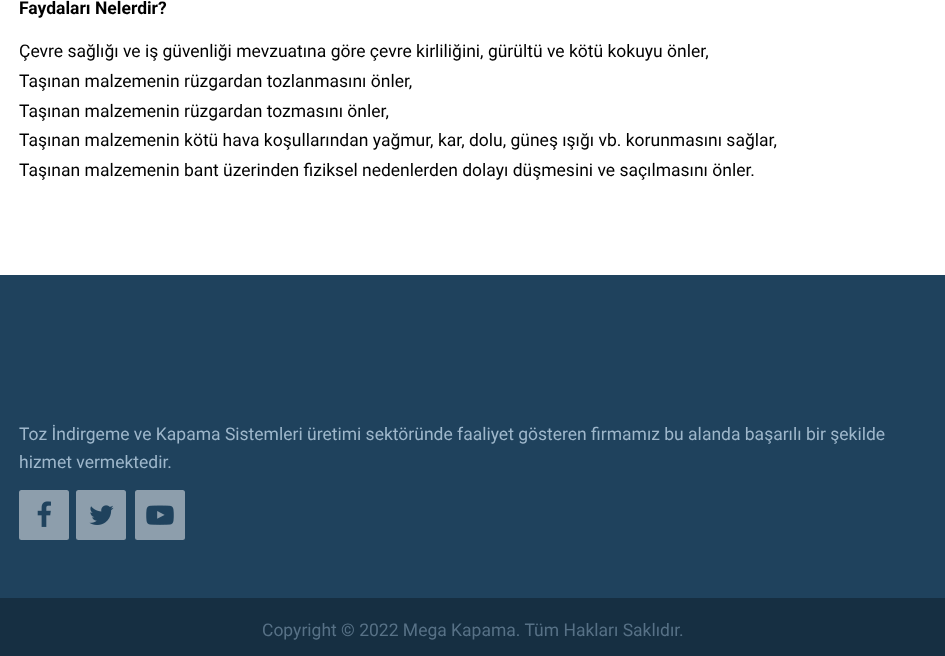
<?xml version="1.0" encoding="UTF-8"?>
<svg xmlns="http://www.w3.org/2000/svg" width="945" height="656">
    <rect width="100%" height="100%" fill="#FFFFFF"/>
    <text x="19" y="14" font-family="Roboto" font-size="17.5" font-weight="700" fill="#000000">Faydaları Nelerdir?</text>
    <text font-family="Roboto" font-size="17.5" fill="#000000">
        <tspan x="19" y="57">Çevre sağlığı ve iş güvenliği mevzuatına göre çevre kirliliğini, gürültü ve kötü kokuyu önler,</tspan>
        <tspan x="19" y="87">Taşınan malzemenin rüzgardan tozlanmasını önler,</tspan>
        <tspan x="19" y="117">Taşınan malzemenin rüzgardan tozmasını önler,</tspan>
        <tspan x="19" y="146">Taşınan malzemenin kötü hava koşullarından yağmur, kar, dolu, güneş ışığı vb. korunmasını sağlar,</tspan>
        <tspan x="19" y="176">Taşınan malzemenin bant üzerinden fiziksel nedenlerden dolayı düşmesini ve saçılmasını önler.</tspan>
    </text>
    <rect x="0" y="275" width="945" height="323" fill="#1F425D"/>
    <text font-family="Roboto" font-size="17.5" fill="#9EB7CB">
        <tspan x="19" y="440">Toz İndirgeme ve Kapama Sistemleri üretimi sektöründe faaliyet gösteren firmamız bu alanda başarılı bir şekilde</tspan>
        <tspan x="19" y="468">hizmet vermektedir.</tspan>
    </text>
    <rect x="19" y="490" width="50" height="50" rx="2.5" fill="#8D9EAC"/>
    <image x="37" y="501" width="14" height="26" href="img_01.png"/>
    <rect x="76" y="490" width="50" height="50" rx="2.5" fill="#8D9EAC"/>
    <image x="89" y="505" width="25" height="20" href="img_02.png"/>
    <rect x="135" y="490" width="50" height="50" rx="2.5" fill="#8D9EAC"/>
    <image x="146" y="505" width="28" height="20" href="img_03.png"/>
    <rect x="0" y="598" width="945" height="58" fill="#162F42"/>
    <text x="262" y="636" font-family="Roboto" font-size="17.5" fill="#577186">Copyright © 2022 Mega Kapama. Tüm Hakları Saklıdır.</text>
</svg>
